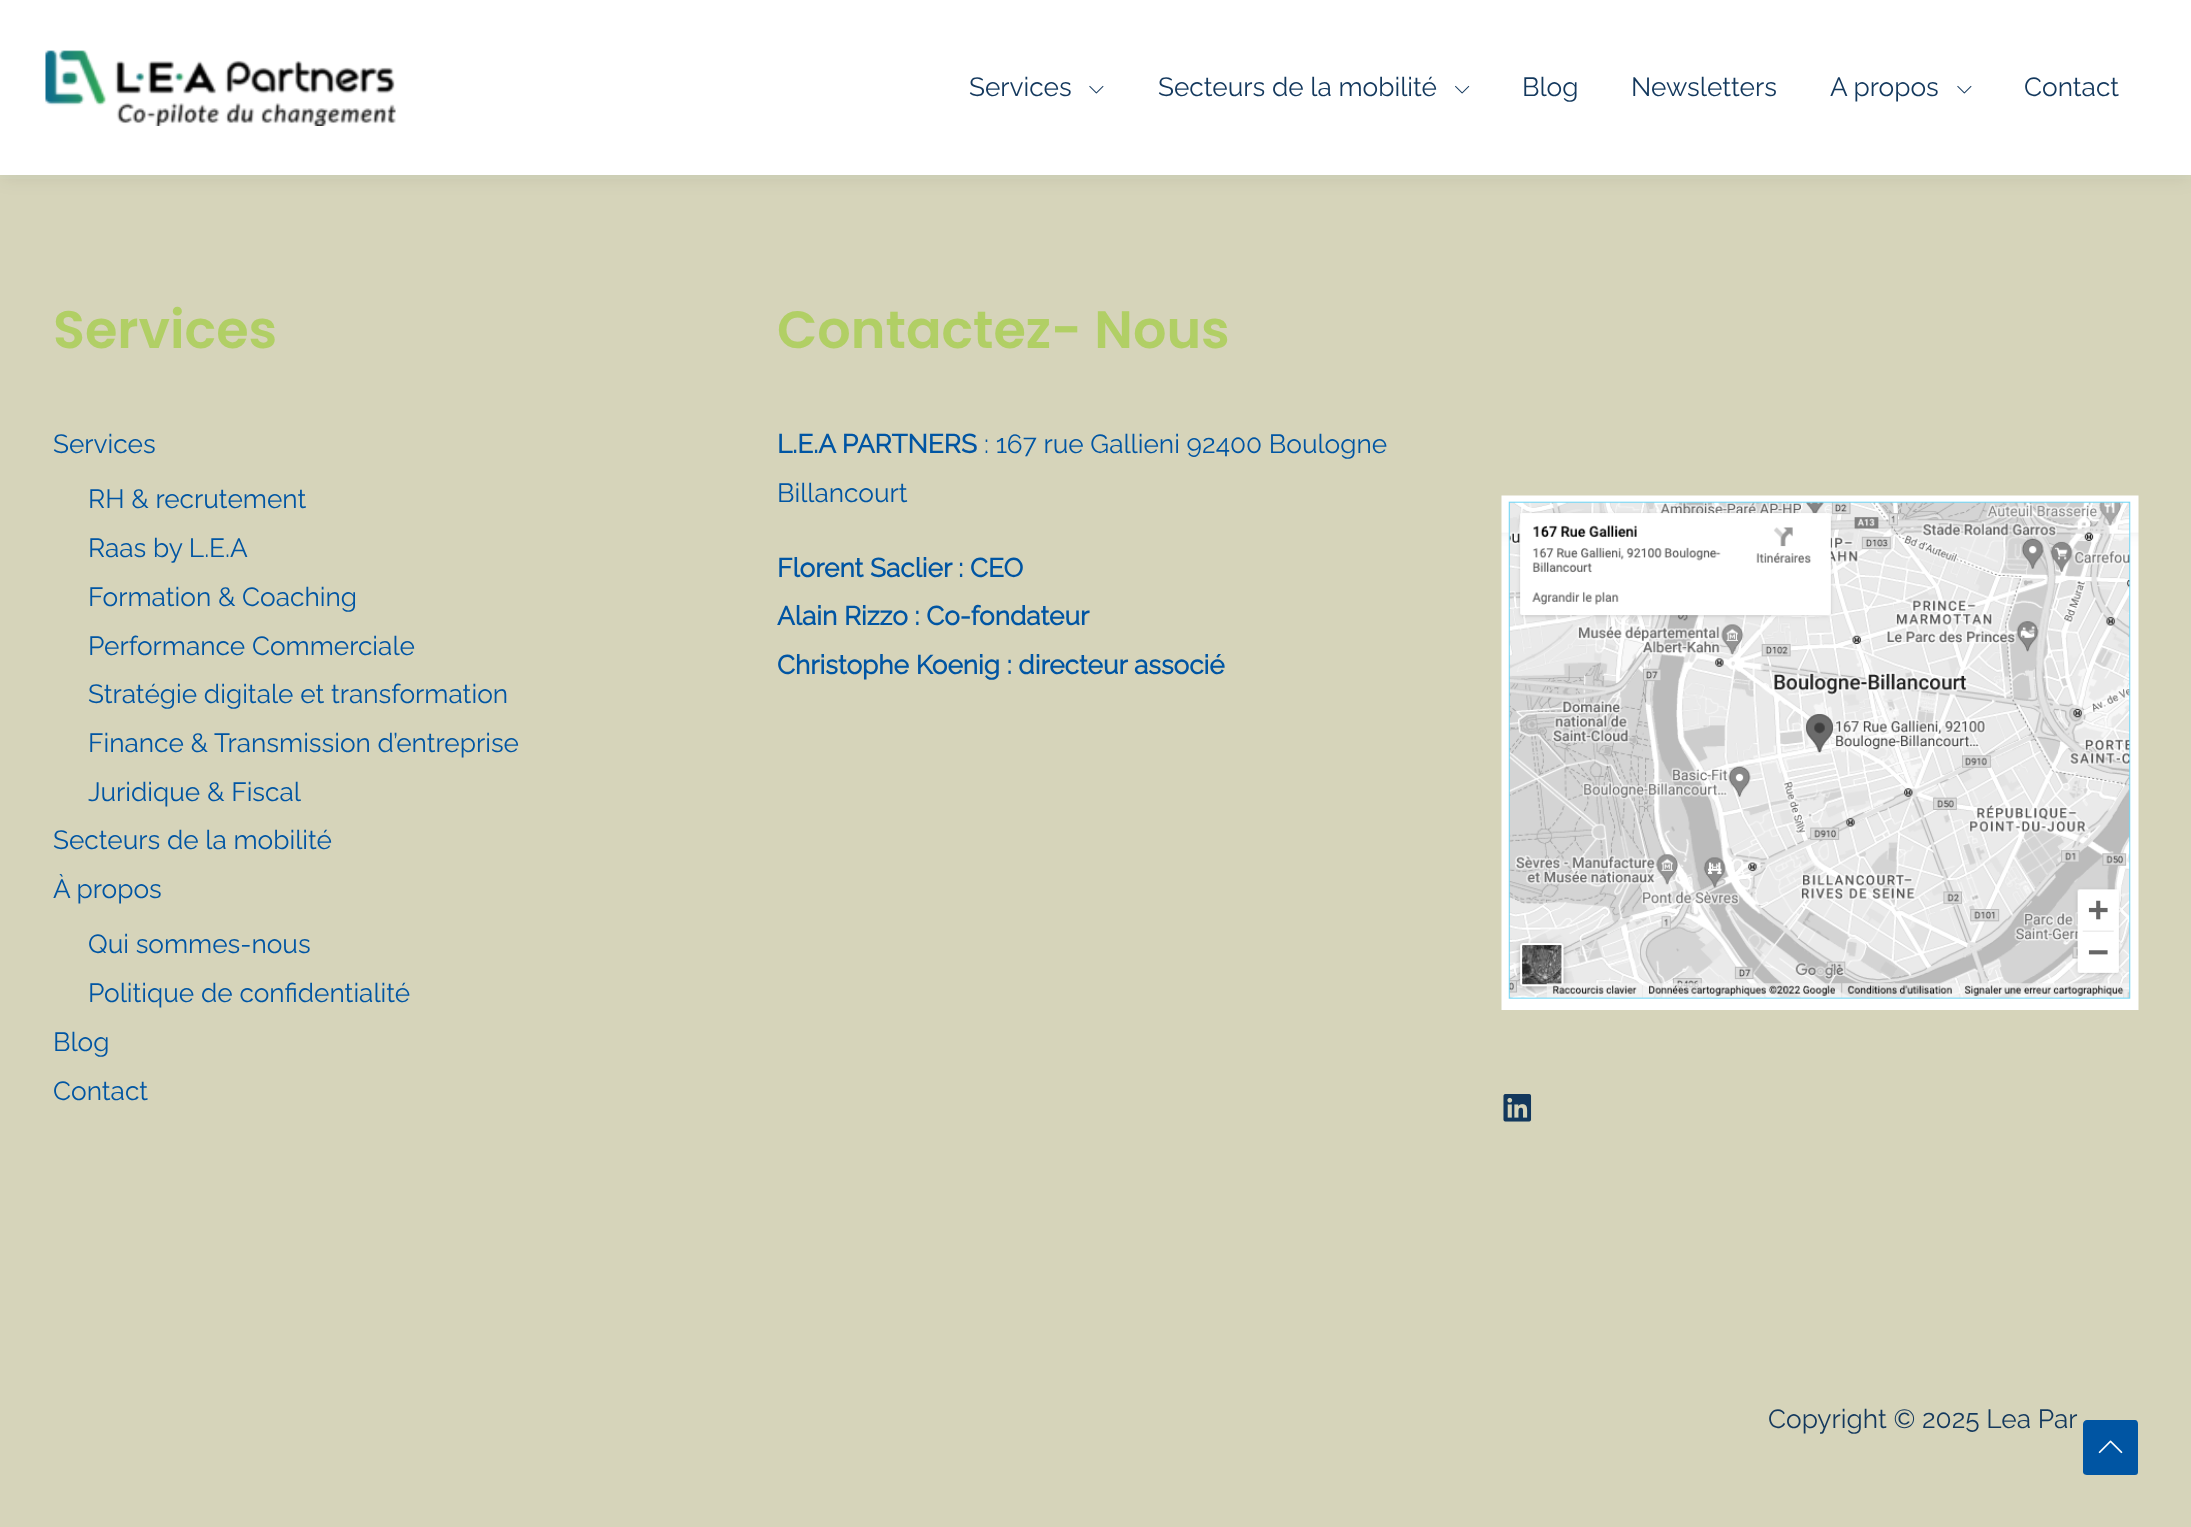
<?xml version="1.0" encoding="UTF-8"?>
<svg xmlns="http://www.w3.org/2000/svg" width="2191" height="1527">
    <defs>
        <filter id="blur1" x="-50%" y="-200%" width="200%" height="500%"><feGaussianBlur stdDeviation="9"/></filter>
    </defs>
    <rect width="100%" height="100%" fill="#D6D4BA"/>
    <rect x="0" y="4" width="2191" height="175" fill="#243242" fill-opacity="0.07" filter="url(#blur1)"/>
    <rect x="0" y="0" width="2191" height="175" fill="#FFFFFF"/>
    <image x="45" y="50" width="351" height="76" href="img_01.png"/>
    <text x="969" y="96" font-family="Raleway" font-size="26.25" font-weight="100" fill="#13385D">Services</text>
    <image x="1089" y="85" width="15" height="9" href="img_02.png"/>
    <text x="1158" y="96" font-family="Raleway" font-size="26.25" font-weight="100" fill="#13385D">Secteurs de la mobilité</text>
    <image x="1455" y="85" width="15" height="9" href="img_03.png"/>
    <text x="1522" y="96" font-family="Raleway" font-size="26.25" font-weight="100" fill="#13385D">Blog</text>
    <text x="1631" y="96" font-family="Raleway" font-size="26.25" font-weight="100" fill="#13385D">Newsletters</text>
    <text x="1830" y="96" font-family="Raleway" font-size="26.25" font-weight="100" fill="#13385D">A propos</text>
    <image x="1957" y="85" width="15" height="9" href="img_02.png"/>
    <text x="2024" y="96" font-family="Raleway" font-size="26.25" font-weight="100" fill="#13385D">Contact</text>
    <text x="53" y="348" font-family="Poppins" font-size="52.5" font-weight="600" fill="#B1CF65">Services</text>
    <text x="53" y="453" font-family="Raleway" font-size="26.25" font-weight="100" fill="#0055A3">Services</text>
    <text font-family="Raleway" font-size="26.25" font-weight="100" fill="#0055A3">
        <tspan x="88" y="508">RH &amp; recrutement</tspan>
        <tspan x="88" y="557">Raas by L.E.A</tspan>
        <tspan x="88" y="606">Formation &amp; Coaching</tspan>
        <tspan x="88" y="655">Performance Commerciale</tspan>
        <tspan x="88" y="703">Stratégie digitale et transformation</tspan>
        <tspan x="88" y="752">Finance &amp; Transmission d’entreprise</tspan>
        <tspan x="88" y="801">Juridique &amp; Fiscal</tspan>
    </text>
    <text font-family="Raleway" font-size="26.25" font-weight="100" fill="#0055A3">
        <tspan x="53" y="849">Secteurs de la mobilité</tspan>
        <tspan x="53" y="898">À propos</tspan>
    </text>
    <text font-family="Raleway" font-size="26.25" font-weight="100" fill="#0055A3">
        <tspan x="88" y="953">Qui sommes-nous</tspan>
        <tspan x="88" y="1002">Politique de confidentialité</tspan>
    </text>
    <text font-family="Raleway" font-size="26.25" font-weight="100" fill="#0055A3">
        <tspan x="53" y="1051">Blog</tspan>
        <tspan x="53" y="1100">Contact</tspan>
    </text>
    <text x="777" y="348" font-family="Poppins" font-size="52.5" font-weight="600" fill="#B1CF65">Contactez- Nous</text>
    <text x="777" y="453" font-family="Raleway" font-size="26.25" font-weight="700" fill="#0055A3">L.E.A PARTNERS</text>
    <text x="984" y="453" font-family="Raleway" font-size="26.25" font-weight="100" fill="#0055A3">: 167 rue Gallieni 92400 Boulogne</text>
    <text x="777" y="502" font-family="Raleway" font-size="26.25" font-weight="100" fill="#0055A3">Billancourt</text>
    <text font-family="Raleway" font-size="26.25" font-weight="700" fill="#0055A3">
        <tspan x="777" y="577">Florent Saclier : CEO</tspan>
        <tspan x="777" y="625">Alain Rizzo : Co-fondateur</tspan>
        <tspan x="777" y="674">Christophe Koenig : directeur associé</tspan>
    </text>
    <image x="1501" y="495" width="638" height="515" href="img_04.png"/>
    <image x="1503" y="1094" width="29" height="28" href="img_05.png"/>
    <text x="1768" y="1428" font-family="Raleway" font-size="26.25" font-weight="100" fill="#13385D">Copyright © 2025 Lea Par</text>
    <path d="M 2135 1475 H 2087 C 2085 1475 2083 1474 2083 1472 V 1424 C 2083 1422 2085 1420 2087 1420 H 2135 C 2137 1420 2138 1422 2138 1424 V 1472 C 2138 1474 2137 1475 2135 1475 Z" fill="#0055A3"/>
    <image x="2098" y="1440" width="25" height="14" href="img_06.png"/>
</svg>
